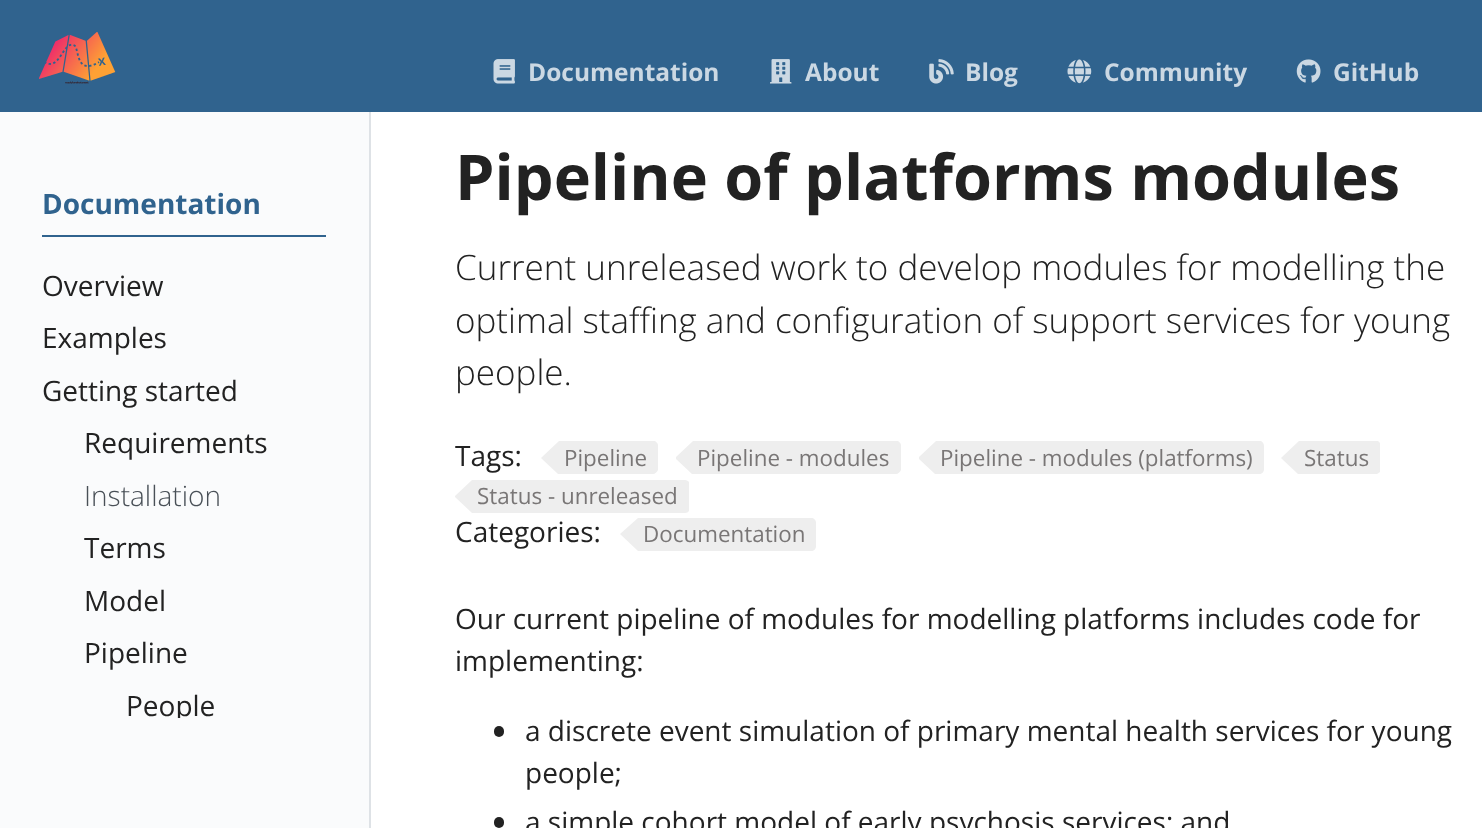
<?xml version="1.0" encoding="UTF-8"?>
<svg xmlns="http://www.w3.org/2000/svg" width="1482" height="828">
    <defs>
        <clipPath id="clip1"><rect x="0" y="168" width="368" height="550"/></clipPath>
    </defs>
    <rect width="100%" height="100%" fill="#FFFFFF"/>
    <rect x="0" y="0" width="1482" height="112" fill="#30638E"/>
    <image x="39" y="32" width="77" height="52" href="img_01.png"/>
    <image x="493" y="59" width="22" height="25" href="img_02.png"/>
    <text x="528" y="81" font-family="Open Sans" font-size="24.5" font-weight="700" fill="#CBD8E3">Documentation</text>
    <image x="770" y="59" width="22" height="25" href="img_03.png"/>
    <text x="805" y="81" font-family="Open Sans" font-size="24.5" font-weight="700" fill="#CBD8E3">About</text>
    <image x="929" y="59" width="25" height="25" href="img_04.png"/>
    <text x="965" y="81" font-family="Open Sans" font-size="24.5" font-weight="700" fill="#CBD8E3">Blog</text>
    <image x="1067" y="59" width="25" height="25" href="img_05.png"/>
    <text x="1104" y="81" font-family="Open Sans" font-size="24.5" font-weight="700" fill="#CBD8E3">Community</text>
    <image x="1296" y="59" width="25" height="24" href="img_06.png"/>
    <text x="1333" y="81" font-family="Open Sans" font-size="24.5" font-weight="700" fill="#CBD8E3">GitHub</text>
    <rect x="0" y="112" width="369" height="716" fill="#FAFBFC"/>
    <rect x="369" y="112" width="2" height="716" fill="#DEE2E6"/>
    <rect x="42" y="235" width="284" height="2" fill="#30638E"/>
    <text x="42" y="214" font-family="Open Sans" font-size="28" font-weight="700" fill="#30638E">Documentation</text>
    <text font-family="Open Sans" font-size="28" fill="#222222">
        <tspan x="42" y="296">Overview</tspan>
        <tspan x="42" y="348">Examples</tspan>
        <tspan x="42" y="401">Getting started</tspan>
    </text>
    <text x="84" y="453" font-family="Open Sans" font-size="28" fill="#222222">Requirements</text>
    <text x="84" y="506" font-family="Open Sans" font-size="28" font-weight="300" fill="#495057">Installation</text>
    <text font-family="Open Sans" font-size="28" fill="#222222">
        <tspan x="84" y="558">Terms</tspan>
        <tspan x="84" y="611">Model</tspan>
        <tspan x="84" y="663">Pipeline</tspan>
    </text>
    <g clip-path="url(#clip1)">
        <text x="126" y="716" font-family="Open Sans" font-size="28" fill="#222222">People</text>
    </g>
    <text x="455" y="200" font-family="Open Sans" font-size="63" font-weight="700" fill="#222222">Pipeline of platforms modules</text>
    <text font-family="Open Sans" font-size="35" font-weight="300" fill="#222222">
        <tspan x="455" y="280">Current unreleased work to develop modules for modelling the</tspan>
        <tspan x="455" y="333">optimal staffing and configuration of support services for young</tspan>
        <tspan x="455" y="385">people.</tspan>
    </text>
    <text x="455" y="466" font-family="Open Sans" font-size="28" fill="#222222">Tags:</text>
    <path d="M 658 470 C 657 472 655 474 653 474 H 558 L 541 458 L 559 441 H 655 C 656 442 658 443 658 445 Z" fill="#EEEEEE"/>
    <text x="564" y="466" font-family="Open Sans" font-size="22.4" fill="#797676">Pipeline</text>
    <path d="M 676 459 V 457 L 693 441 H 898 C 899 442 901 443 901 445 V 470 C 900 472 898 474 896 474 H 692 Z" fill="#EEEEEE"/>
    <text x="697" y="466" font-family="Open Sans" font-size="22.4" fill="#797676">Pipeline - modules</text>
    <path d="M 919 459 V 457 L 936 441 H 1261 C 1263 442 1264 444 1264 446 V 469 C 1264 472 1262 474 1259 474 H 935 Z" fill="#EEEEEE"/>
    <text x="940" y="466" font-family="Open Sans" font-size="22.4" fill="#797676">Pipeline - modules (platforms)</text>
    <path d="M 1380 472 L 1377 474 H 1298 L 1281 458 L 1299 441 H 1378 L 1380 443 Z" fill="#EEEEEE"/>
    <text x="1304" y="466" font-family="Open Sans" font-size="22.4" fill="#797676">Status</text>
    <path d="M 472 480 H 685 C 687 480 688 481 689 482 V 511 C 688 512 687 513 685 513 H 472 L 455 497 V 496 Z" fill="#EEEEEE"/>
    <text x="477" y="504" font-family="Open Sans" font-size="22.4" fill="#797676">Status - unreleased</text>
    <text x="455" y="542" font-family="Open Sans" font-size="28" fill="#222222">Categories:</text>
    <path d="M 638 518 H 811 C 814 518 816 520 816 523 V 546 C 816 549 814 551 811 551 H 638 L 620 534 Z" fill="#EEEEEE"/>
    <text x="643" y="542" font-family="Open Sans" font-size="22.4" fill="#797676">Documentation</text>
    <text font-family="Open Sans" font-size="28" fill="#222222">
        <tspan x="455" y="629">Our current pipeline of modules for modelling platforms includes code for</tspan>
        <tspan x="455" y="671">implementing:</tspan>
    </text>
    <rect x="494" y="726" width="10" height="11" rx="5" fill="#222222"/>
    <text font-family="Open Sans" font-size="28" fill="#222222">
        <tspan x="525" y="741">a discrete event simulation of primary mental health services for young</tspan>
        <tspan x="525" y="783">people;</tspan>
    </text>
    <rect x="494" y="817" width="10" height="11" rx="5" fill="#222222"/>
    <text x="525" y="832" font-family="Open Sans" font-size="28" fill="#222222">a simple cohort model of early psychosis services; and</text>
</svg>
